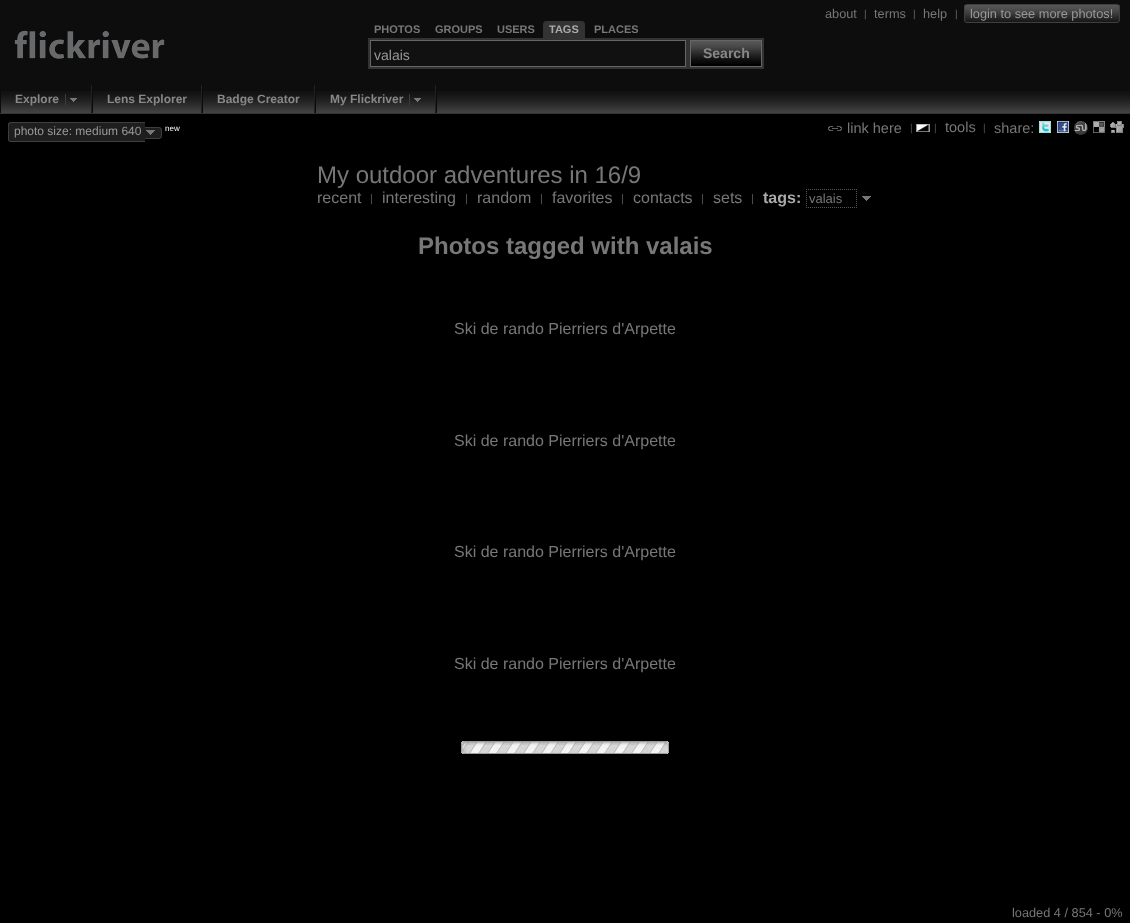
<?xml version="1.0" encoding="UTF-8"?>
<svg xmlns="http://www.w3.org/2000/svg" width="1130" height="923">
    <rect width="100%" height="100%" fill="#000000"/>
    <rect x="0" y="0" width="1130" height="85" fill="#0D0D0D"/>
    <text x="825" y="18" font-family="Liberation Sans" font-size="12.75" fill="#777777">about</text>
    <text x="923" y="18" font-family="Liberation Sans" font-size="12.75" fill="#777777">help</text>
    <image x="964" y="5" width="156" height="18" href="img_01.png"/>
    <text x="864" y="17" font-family="Liberation Sans" font-size="10" fill="#666666">|</text>
    <text x="874" y="18" font-family="Liberation Sans" font-size="12.75" fill="#777777">terms</text>
    <text x="913" y="17" font-family="Liberation Sans" font-size="10" fill="#666666">|</text>
    <text x="955" y="17" font-family="Liberation Sans" font-size="10" fill="#666666">|</text>
    <rect x="964.5" y="4.5" width="155" height="18" rx="2.5" fill="none" stroke="#3F3F3F"/>
    <text x="970" y="18" font-family="Liberation Sans" font-size="12.75" fill="#999999">login to see more photos!</text>
    <image x="14" y="30" width="151" height="29" href="img_02.png"/>
    <text x="374" y="33" font-family="Liberation Sans" font-size="11" font-weight="700" fill="#777777">PHOTOS</text>
    <text x="435" y="33" font-family="Liberation Sans" font-size="11" font-weight="700" fill="#777777">GROUPS</text>
    <text x="497" y="33" font-family="Liberation Sans" font-size="11" font-weight="700" fill="#777777">USERS</text>
    <path d="M 546 21 H 582 C 583.5 21 585 22.5 585 24 V 38 H 543 V 24 C 543 22.5 544.5 21 546 21 Z" fill="#333333"/>
    <text x="549" y="33" font-family="Liberation Sans" font-size="11" font-weight="700" fill="#AAAAAA">TAGS</text>
    <text x="594" y="33" font-family="Liberation Sans" font-size="11" font-weight="700" fill="#777777">PLACES</text>
    <rect x="368" y="38" width="396" height="31" fill="#333333"/>
    <rect x="370.5" y="40.5" width="315" height="26" fill="#111111" stroke="#666666"/>
    <text x="374" y="60" font-family="Liberation Sans" font-size="14" fill="#999999">valais</text>
    <rect x="691" y="64" width="70" height="2" fill="#000000"/>
    <rect x="690.5" y="40.5" width="71" height="26" fill="none" stroke="#666666"/>
    <image x="691" y="41" width="70" height="23" href="img_03.png"/>
    <text x="703" y="58" font-family="Liberation Sans" font-size="14" font-weight="700" fill="#888888">Search</text>
    <rect x="1" y="85" width="1129" height="6" fill="#0D0D0D"/>
    <image x="1" y="91" width="1129" height="22" href="img_04.png"/>
    <rect x="0" y="113" width="1130" height="1" fill="#333333"/>
    <rect x="436" y="85" width="1" height="28" fill="#0B0B0B"/>
    <rect x="91" y="85" width="1" height="28" fill="#212121"/>
    <rect x="0" y="85" width="1" height="28" fill="#0B0B0B"/>
    <text x="15" y="103" font-family="Liberation Sans" font-size="12" font-weight="700" fill="#888888">Explore</text>
    <image x="65" y="94" width="12" height="12" href="img_05.png"/>
    <rect x="201" y="85" width="1" height="28" fill="#212121"/>
    <rect x="92" y="85" width="1" height="28" fill="#0B0B0B"/>
    <text x="107" y="103" font-family="Liberation Sans" font-size="12" font-weight="700" fill="#888888">Lens Explorer</text>
    <rect x="314" y="85" width="1" height="28" fill="#212121"/>
    <rect x="202" y="85" width="1" height="28" fill="#0B0B0B"/>
    <text x="217" y="103" font-family="Liberation Sans" font-size="12" font-weight="700" fill="#888888">Badge Creator</text>
    <rect x="435" y="85" width="1" height="28" fill="#212121"/>
    <rect x="315" y="85" width="1" height="28" fill="#0B0B0B"/>
    <text x="330" y="103" font-family="Liberation Sans" font-size="12" font-weight="700" fill="#888888">My Flickriver</text>
    <image x="409" y="94" width="12" height="12" href="img_05.png"/>
    <path d="M 11 122 H 141 V 142 H 11 C 9.5 142 8 140.5 8 139 V 125 C 8 123.5 9.5 122 11 122 Z" fill="#1E1E1E"/>
    <path d="M 11 122 H 141 V 142 H 11 C 9 142 8 141 8 139 V 125 C 8 123 9 122 11 122 Z M 11 123 H 141 V 141 H 10 L 9 140 V 132 C 9 130 8 123 11 123 Z" fill="#3F3F3F" fill-rule="evenodd"/>
    <text x="14" y="135" font-family="Liberation Sans" font-size="12" fill="#999999">photo size: medium 640</text>
    <rect x="141" y="122" width="4" height="20" fill="#1E1E1E"/>
    <rect x="141" y="122" width="4" height="1" fill="#3F3F3F"/>
    <rect x="141" y="141" width="4" height="1" fill="#3F3F3F"/>
    <path d="M 145 127 H 159 C 160.5 127 162 128.5 162 130 V 136 C 162 137.5 160.5 139 159 139 H 145 Z" fill="#1E1E1E"/>
    <path d="M 145 127 H 154.5 C 161 127 162 126.5 162 133 C 162 139.5 161 139 154.5 139 H 145 Z M 145 128 H 154.5 C 160.5 128 161 127 161 133 C 161 139 160.5 138 154.5 138 H 145 Z" fill="#3F3F3F" fill-rule="evenodd"/>
    <text x="165" y="131" font-family="Liberation Sans" font-size="8" fill="#FFFFFF">new</text>
    <image x="146" y="130" width="9" height="5" href="img_06.png"/>
    <image x="828" y="126" width="14" height="5" href="img_07.png"/>
    <text x="847" y="133" font-family="Liberation Sans" font-size="14.5" fill="#777777">link here</text>
    <text x="910" y="131" font-family="Liberation Sans" font-size="10" fill="#555555">|</text>
    <image x="916" y="124" width="14" height="8" href="img_08.png"/>
    <text x="934" y="131" font-family="Liberation Sans" font-size="10" fill="#555555">|</text>
    <text x="945" y="132" font-family="Liberation Sans" font-size="14.5" fill="#777777">tools</text>
    <text x="983" y="131" font-family="Liberation Sans" font-size="10" fill="#555555">|</text>
    <text x="994" y="133" font-family="Liberation Sans" font-size="14.5" fill="#777777">share:</text>
    <image x="1039" y="121" width="12" height="12" href="img_09.png"/>
    <image x="1057" y="121" width="12" height="12" href="img_10.png"/>
    <image x="1074" y="121" width="14" height="14" href="img_11.png"/>
    <image x="1093" y="121" width="12" height="12" href="img_12.png"/>
    <image x="1110" y="121" width="14" height="12" href="img_13.png"/>
    <text x="317" y="183" font-family="Liberation Sans" font-size="24" fill="#777777">My outdoor adventures in 16/9</text>
    <text x="317" y="203" font-family="Liberation Sans" font-size="16" fill="#777777">recent</text>
    <text x="370" y="202" font-family="Liberation Sans" font-size="11" fill="#555555">|</text>
    <text x="382" y="203" font-family="Liberation Sans" font-size="16" fill="#777777">interesting</text>
    <text x="465" y="202" font-family="Liberation Sans" font-size="11" fill="#555555">|</text>
    <text x="477" y="203" font-family="Liberation Sans" font-size="16" fill="#777777">random</text>
    <text x="540" y="202" font-family="Liberation Sans" font-size="11" fill="#555555">|</text>
    <text x="552" y="203" font-family="Liberation Sans" font-size="16" fill="#777777">favorites</text>
    <text x="621" y="202" font-family="Liberation Sans" font-size="11" fill="#555555">|</text>
    <text x="633" y="203" font-family="Liberation Sans" font-size="16" fill="#777777">contacts</text>
    <text x="701" y="202" font-family="Liberation Sans" font-size="11" fill="#555555">|</text>
    <text x="713" y="203" font-family="Liberation Sans" font-size="16" fill="#777777">sets</text>
    <text x="751" y="202" font-family="Liberation Sans" font-size="11" fill="#555555">|</text>
    <text x="763" y="203" font-family="Liberation Sans" font-size="16" font-weight="700" fill="#AAAAAA">tags:</text>
    <path d="M 806 189.5 H 857 M 856.5 189 V 208 M 806 207.5 H 857 M 806.5 189 V 208" fill="none" stroke="#555555" stroke-dasharray="1 1"/>
    <text x="809" y="203" font-family="Liberation Sans" font-size="13" fill="#777777">valais</text>
    <image x="862" y="196" width="9" height="5" href="img_14.png"/>
    <text x="418" y="254" font-family="Liberation Sans" font-size="24" font-weight="700" fill="#777777">Photos tagged with valais</text>
    <text x="454" y="334" font-family="Liberation Sans" font-size="16" fill="#777777">Ski de rando Pierriers d'Arpette</text>
    <text x="454" y="446" font-family="Liberation Sans" font-size="16" fill="#777777">Ski de rando Pierriers d'Arpette</text>
    <text x="454" y="557" font-family="Liberation Sans" font-size="16" fill="#777777">Ski de rando Pierriers d'Arpette</text>
    <text x="454" y="669" font-family="Liberation Sans" font-size="16" fill="#777777">Ski de rando Pierriers d'Arpette</text>
    <image x="461" y="741" width="208" height="13" href="img_15.png"/>
    <text x="1012" y="917" font-family="Liberation Sans" font-size="12.75" fill="#777777">loaded 4 / 854 - 0%</text>
</svg>
